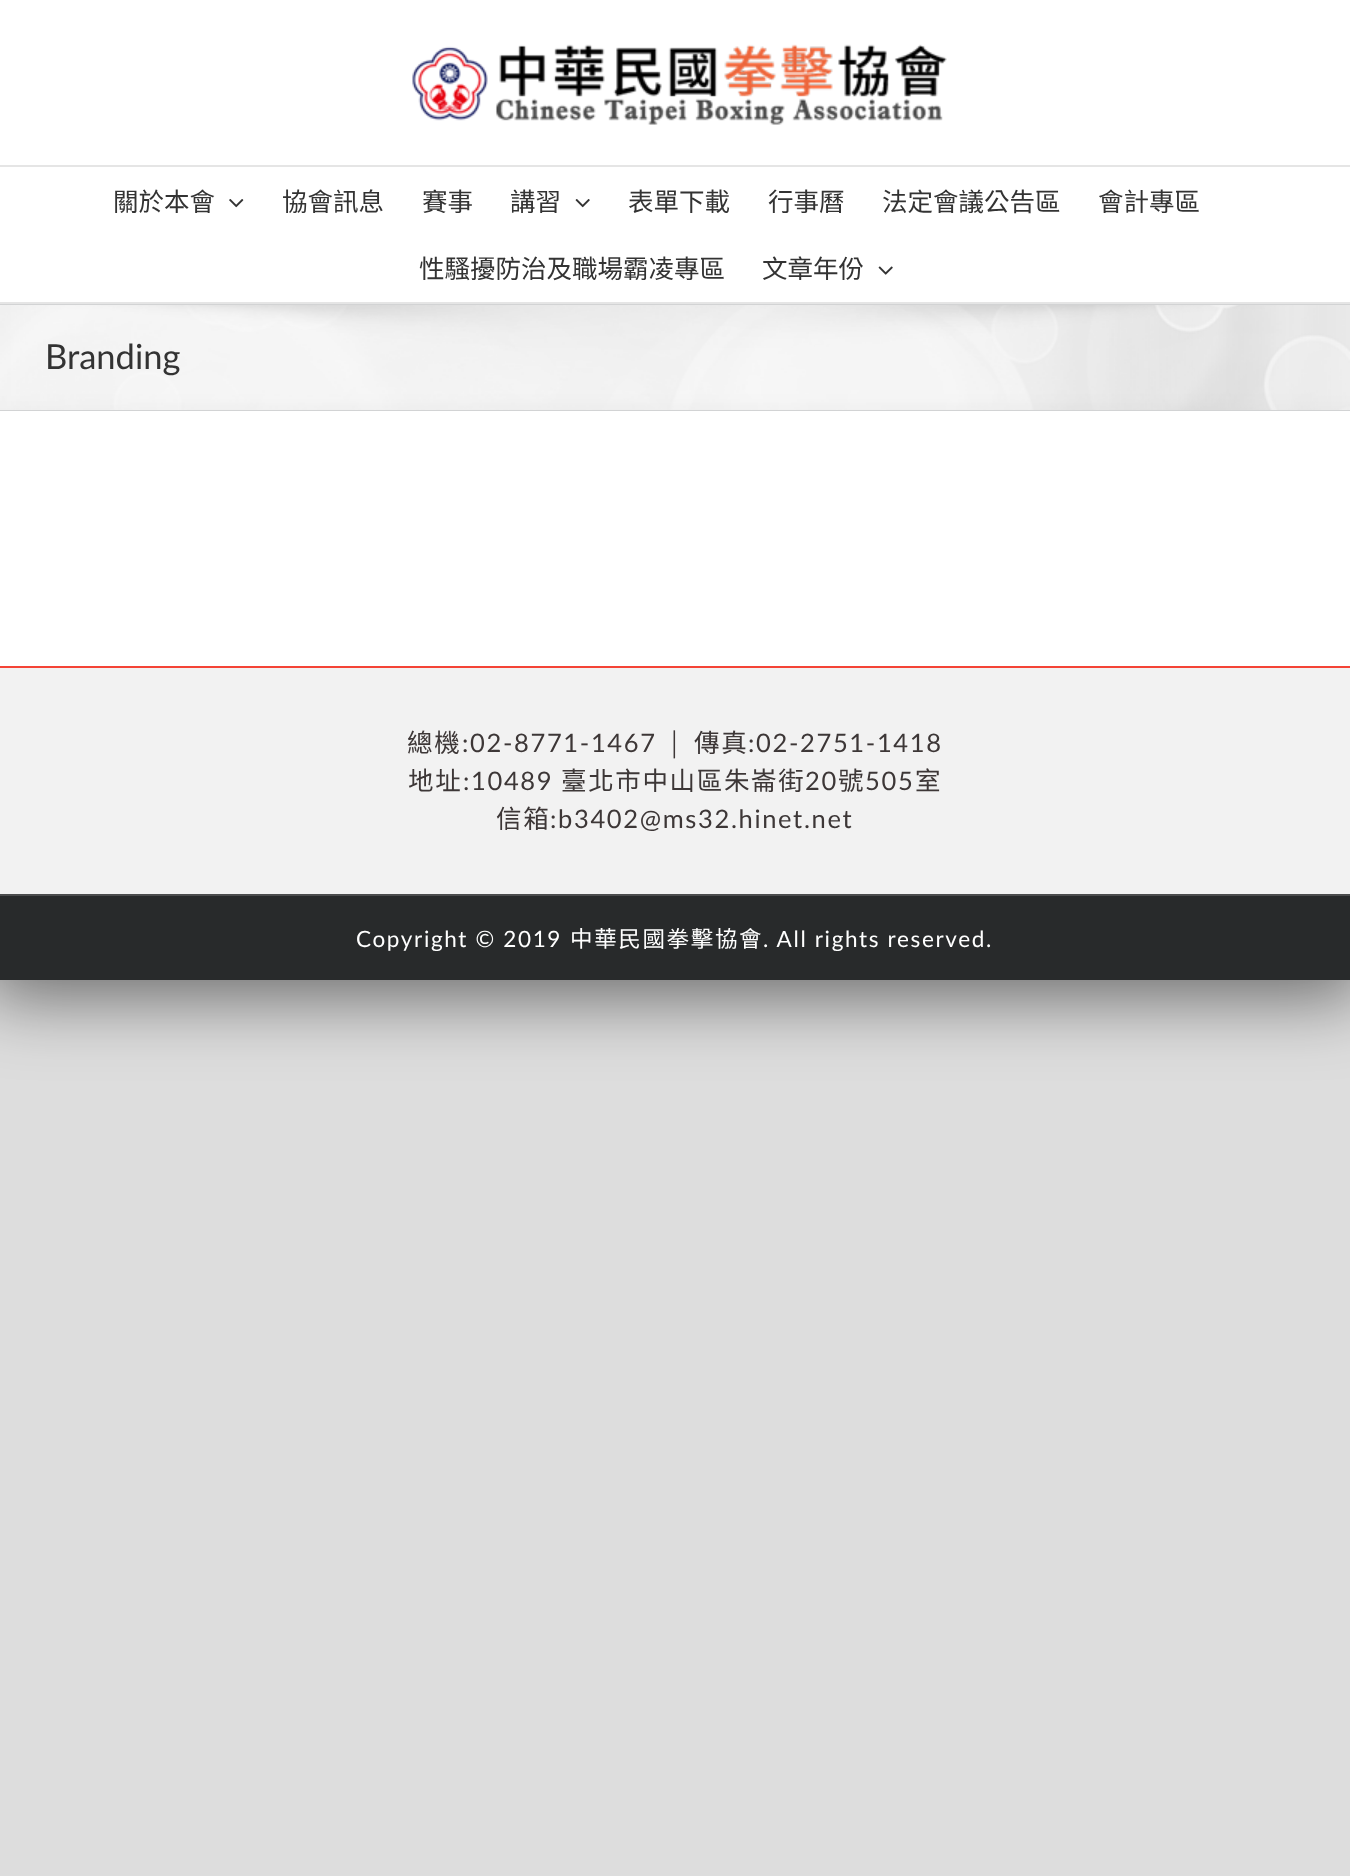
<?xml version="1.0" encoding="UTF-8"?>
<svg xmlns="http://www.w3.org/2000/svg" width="1350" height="1876">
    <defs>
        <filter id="blur1" x="-50%" y="-200%" width="200%" height="500%"><feGaussianBlur stdDeviation="37.5"/></filter>
    </defs>
    <rect width="100%" height="100%" fill="#DDDDDD"/>
    <rect x="-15" y="-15" width="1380" height="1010" fill="#000000" fill-opacity="0.55" filter="url(#blur1)"/>
    <rect x="0" y="0" width="1350" height="165" fill="#FFFFFF"/>
    <rect x="0" y="165" width="1350" height="2" fill="#E5E5E5"/>
    <image x="412" y="44" width="535" height="81" href="img_01.png"/>
    <rect x="0" y="167" width="1350" height="135" fill="#FFFFFF"/>
    <rect x="0" y="302" width="1350" height="2" fill="#E5E5E5"/>
    <text x="113" y="211" font-family="Noto Sans CJK TC" font-size="25.5" fill="#333333">關於本會</text>
    <image x="229" y="199" width="15" height="9" href="img_02.png"/>
    <text x="282" y="211" font-family="Noto Sans CJK TC" font-size="25.5" fill="#333333">協會訊息</text>
    <text x="422" y="211" font-family="Noto Sans CJK TC" font-size="25.5" fill="#333333">賽事</text>
    <text x="510" y="211" font-family="Noto Sans CJK TC" font-size="25.5" fill="#333333">講習</text>
    <image x="575" y="199" width="15" height="9" href="img_03.png"/>
    <text x="628" y="211" font-family="Noto Sans CJK TC" font-size="25.5" fill="#333333">表單下載</text>
    <text x="768" y="211" font-family="Noto Sans CJK TC" font-size="25.5" fill="#333333">行事曆</text>
    <text x="882" y="211" font-family="Noto Sans CJK TC" font-size="25.5" fill="#333333">法定會議公告區</text>
    <text x="1098" y="211" font-family="Noto Sans CJK TC" font-size="25.5" fill="#333333">會計專區</text>
    <text x="419" y="278" font-family="Noto Sans CJK TC" font-size="25.5" fill="#333333">性騷擾防治及職場霸凌專區</text>
    <text x="762" y="278" font-family="Noto Sans CJK TC" font-size="25.5" fill="#333333">文章年份</text>
    <image x="878" y="266" width="15" height="9" href="img_04.png"/>
    <rect x="0" y="305" width="1350" height="105" fill="#F6F6F6"/>
    <image x="0" y="305" width="1350" height="105" href="img_05.png"/>
    <rect x="0" y="304" width="1350" height="1" fill="#D2D3D4"/>
    <rect x="0" y="410" width="1350" height="1" fill="#D2D3D4"/>
    <text x="45" y="369" font-family="Lato" font-size="34.5" fill="#333333">Branding</text>
    <rect x="0" y="411" width="1350" height="255" fill="#FFFFFF"/>
    <rect x="0" y="668" width="1350" height="226" fill="#F2F2F2"/>
    <rect x="0" y="666" width="1350" height="2" fill="#F44336"/>
    <text x="407" y="752" font-family="Noto Sans TC" font-size="25.5" letter-spacing="1.65" fill="#3D3737">總機</text>
    <text x="462" y="752" font-family="Lato" font-size="25.5" letter-spacing="1.65" fill="#3D3737">:02-8771-1467 │</text>
    <text x="694" y="752" font-family="Noto Sans TC" font-size="25.5" letter-spacing="1.65" fill="#3D3737">傳真</text>
    <text x="748" y="752" font-family="Lato" font-size="25.5" letter-spacing="1.65" fill="#3D3737">:02-2751-1418</text>
    <text x="408" y="790" font-family="Noto Sans TC" font-size="25.5" letter-spacing="1.65" fill="#3D3737">地址</text>
    <text x="463" y="790" font-family="Lato" font-size="25.5" letter-spacing="1.65" fill="#3D3737">:10489</text>
    <text x="561" y="790" font-family="Noto Sans TC" font-size="25.5" letter-spacing="1.65" fill="#3D3737">臺北市中山區朱崙街</text>
    <text x="805" y="790" font-family="Lato" font-size="25.5" letter-spacing="1.65" fill="#3D3737">20</text>
    <text x="838" y="790" font-family="Noto Sans TC" font-size="25.5" letter-spacing="1.65" fill="#3D3737">號</text>
    <text x="865" y="790" font-family="Lato" font-size="25.5" letter-spacing="1.65" fill="#3D3737">505</text>
    <text x="915" y="790" font-family="Noto Sans TC" font-size="25.5" letter-spacing="1.65" fill="#3D3737">室</text>
    <text x="496" y="828" font-family="Noto Sans TC" font-size="25.5" letter-spacing="1.65" fill="#3D3737">信箱</text>
    <text x="550" y="828" font-family="Lato" font-size="25.5" letter-spacing="1.65" fill="#3D3737">:b3402@ms32.hinet.net</text>
    <rect x="0" y="896" width="1350" height="84" fill="#282A2B"/>
    <rect x="0" y="894" width="1350" height="2" fill="#4B4C4D"/>
    <text x="356" y="947" font-family="Lato" font-size="22.5" letter-spacing="1.65" fill="#FFFFFF">Copyright © 2019</text>
    <text x="570" y="947" font-family="Noto Sans TC" font-size="22.5" letter-spacing="1.65" fill="#FFFFFF">中華民國拳擊協會</text>
    <text x="763" y="947" font-family="Lato" font-size="22.5" letter-spacing="1.65" fill="#FFFFFF">. All rights reserved.</text>
</svg>
